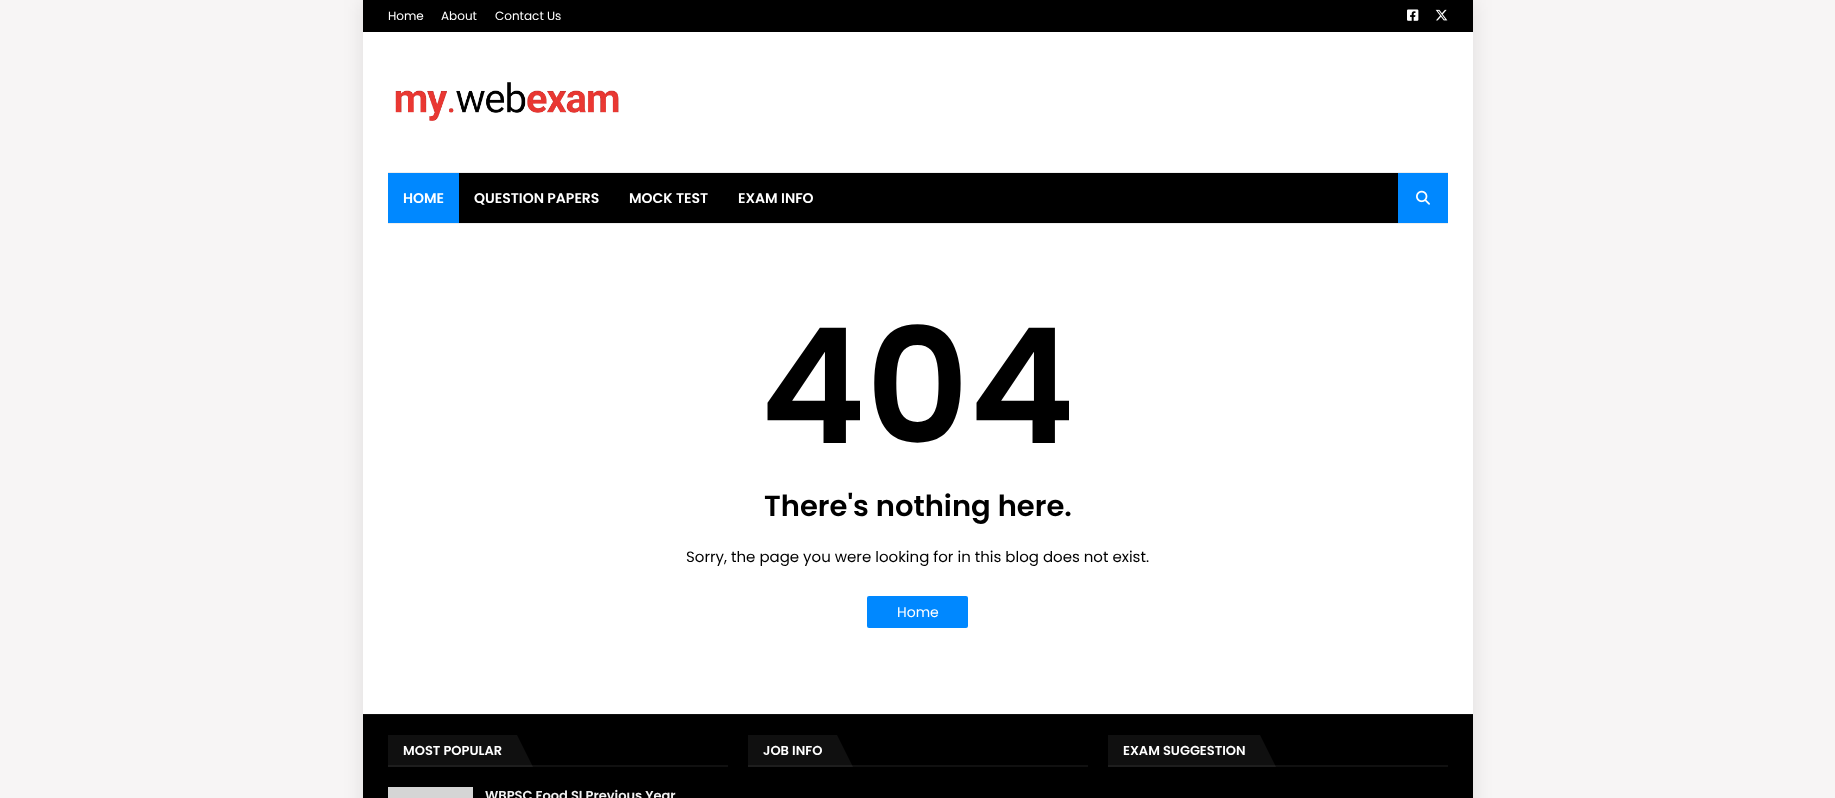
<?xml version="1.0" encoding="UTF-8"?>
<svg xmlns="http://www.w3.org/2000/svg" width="1835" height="798">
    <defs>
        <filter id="blur1" x="-50%" y="-200%" width="200%" height="500%"><feGaussianBlur stdDeviation="10"/></filter>
    </defs>
    <rect width="100%" height="100%" fill="#F7F5F5"/>
    <rect x="363" y="0" width="1110" height="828" fill="#000000" fill-opacity="0.1" filter="url(#blur1)"/>
    <rect x="363" y="32" width="1110" height="682" fill="#FFFFFF"/>
    <rect x="363" y="0" width="1110" height="32" fill="#000000"/>
    <text x="388" y="20" font-family="Poppins" font-size="12" fill="#FFFFFF">Home</text>
    <text x="441" y="20" font-family="Poppins" font-size="12" fill="#FFFFFF">About</text>
    <text x="495" y="20" font-family="Poppins" font-size="12" fill="#FFFFFF">Contact Us</text>
    <image x="1407" y="9" width="12" height="12" href="img_01.png"/>
    <image x="1435" y="9" width="13" height="12" href="img_02.png"/>
    <image x="395" y="82" width="224" height="39" href="img_03.png"/>
    <rect x="459" y="173" width="939" height="50" fill="#000000"/>
    <rect x="388" y="172" width="1060" height="1" fill="#EEEEEE"/>
    <rect x="388" y="223" width="1060" height="1" fill="#EEEEEE"/>
    <rect x="388" y="173" width="71" height="50" fill="#0088FF"/>
    <text x="403" y="203" font-family="Poppins" font-size="14" font-weight="600" fill="#FFFFFF">HOME</text>
    <text x="474" y="203" font-family="Poppins" font-size="14" font-weight="600" fill="#FFFFFF">QUESTION PAPERS</text>
    <text x="629" y="203" font-family="Poppins" font-size="14" font-weight="600" fill="#FFFFFF">MOCK TEST</text>
    <text x="738" y="203" font-family="Poppins" font-size="14" font-weight="600" fill="#FFFFFF">EXAM INFO</text>
    <rect x="1398" y="173" width="50" height="50" fill="#0088FF"/>
    <image x="1416" y="190" width="14" height="15" href="img_04.png"/>
    <text x="760" y="443" font-family="Poppins" font-size="160" font-weight="600" fill="#000000">404</text>
    <text x="764" y="516" font-family="Poppins" font-size="29" font-weight="600" fill="#000000">There's nothing here.</text>
    <text x="686" y="562" font-family="Poppins" font-size="15" fill="#000000">Sorry, the page you were looking for in this blog does not exist.</text>
    <rect x="867" y="596" width="101" height="32" rx="2" fill="#0088FF"/>
    <text x="897" y="617" font-family="Poppins" font-size="14" fill="#FFFFFF">Home</text>
    <rect x="363" y="715" width="1110" height="83" fill="#000000"/>
    <rect x="1108" y="735" width="152" height="30" fill="#101010"/>
    <rect x="748" y="735" width="89" height="30" fill="#101010"/>
    <rect x="388" y="735" width="129" height="30" fill="#101010"/>
    <rect x="363" y="714" width="1110" height="1" fill="#101010"/>
    <rect x="517" y="765" width="211" height="2" fill="#101010"/>
    <rect x="388" y="765" width="129" height="2" fill="#1E1E1E"/>
    <text x="403" y="755" font-family="Poppins" font-size="13" font-weight="600" fill="#FFFFFF">MOST POPULAR</text>
    <path d="M 517 767 V 735 L 533 767 Z" fill="#9B9B9B" fill-opacity="0.1"/>
    <rect x="388" y="787" width="85" height="11" fill="#D5D5D5"/>
    <text x="485" y="800" font-family="Poppins" font-size="13" font-weight="600" fill="#F2F2F2">WBPSC Food SI Previous Year</text>
    <rect x="837" y="765" width="251" height="2" fill="#101010"/>
    <rect x="748" y="765" width="89" height="2" fill="#1E1E1E"/>
    <text x="763" y="755" font-family="Poppins" font-size="13" font-weight="600" fill="#FFFFFF">JOB INFO</text>
    <path d="M 837 767 V 735 L 853 767 Z" fill="#9B9B9B" fill-opacity="0.1"/>
    <rect x="1260" y="765" width="188" height="2" fill="#101010"/>
    <rect x="1108" y="765" width="152" height="2" fill="#1E1E1E"/>
    <text x="1123" y="755" font-family="Poppins" font-size="13" font-weight="600" fill="#FFFFFF">EXAM SUGGESTION</text>
    <path d="M 1260 767 V 735 L 1276 767 Z" fill="#9B9B9B" fill-opacity="0.1"/>
</svg>
